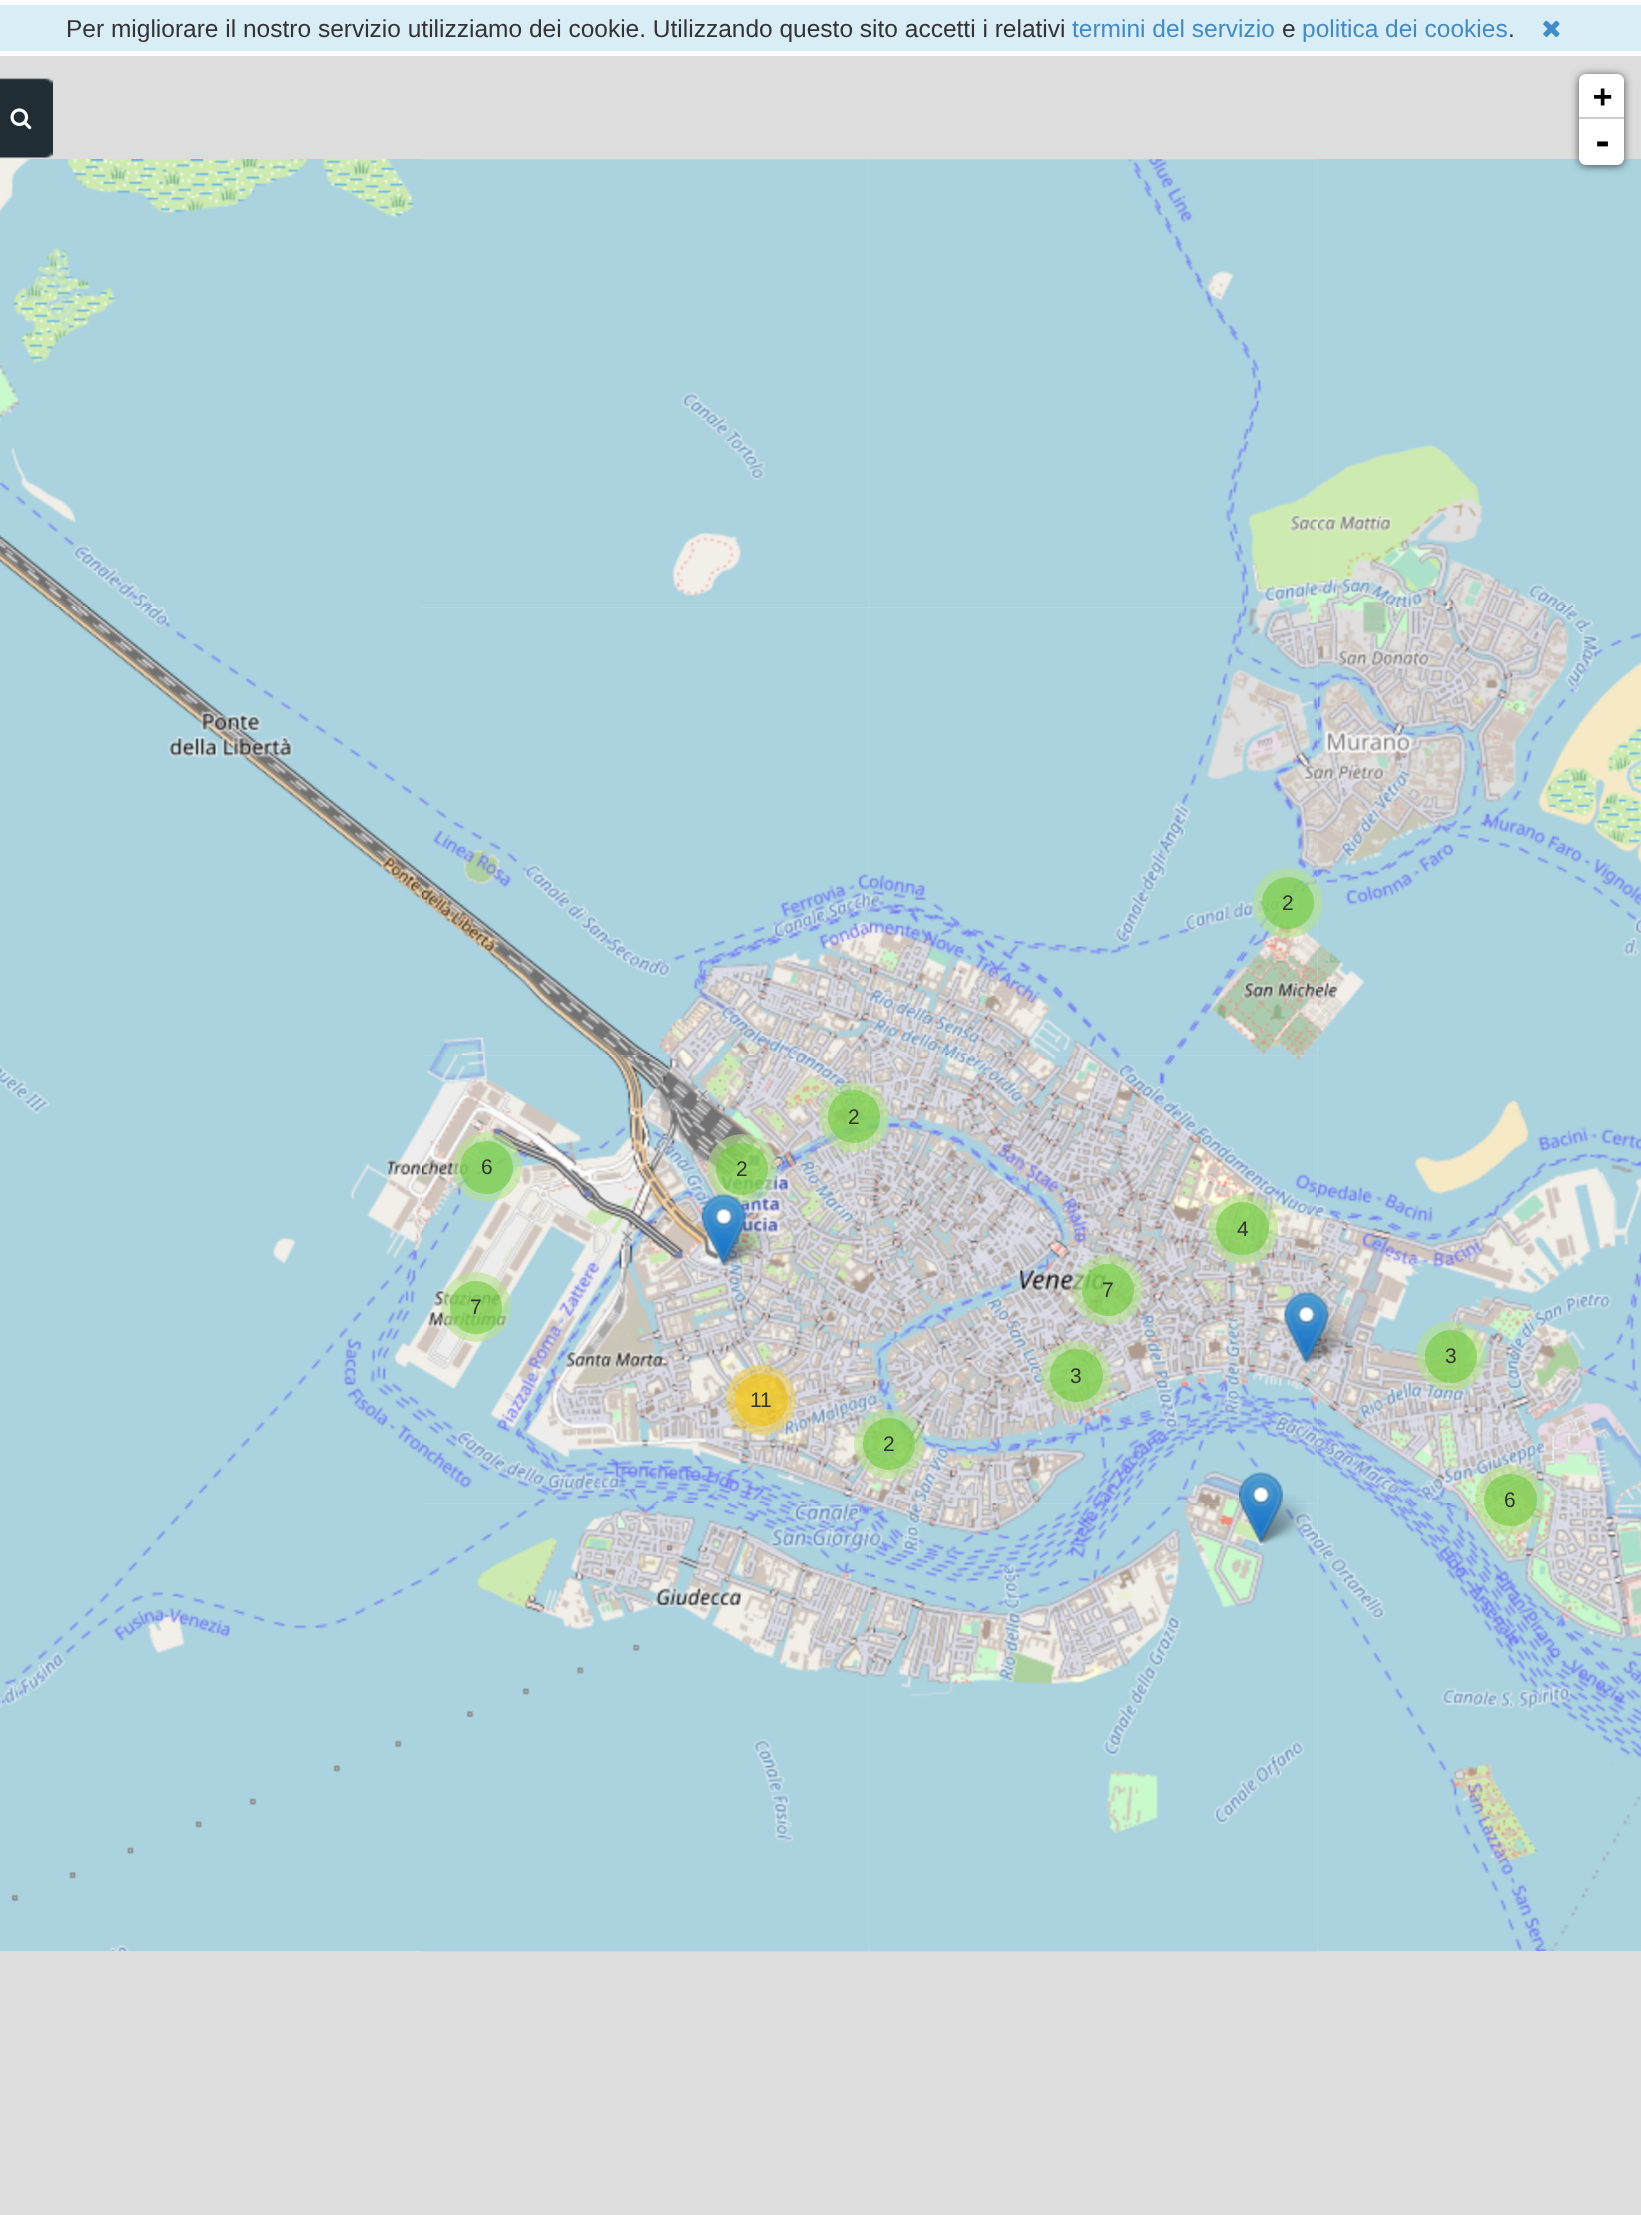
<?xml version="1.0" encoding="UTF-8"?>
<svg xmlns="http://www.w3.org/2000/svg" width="1641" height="2215">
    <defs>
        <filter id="blur1" x="-50%" y="-200%" width="200%" height="500%"><feGaussianBlur stdDeviation="4.5"/></filter>
    </defs>
    <rect width="100%" height="100%" fill="#FFFFFF"/>
    <rect x="0" y="5" width="1641" height="46" fill="#D9EDF7"/>
    <text x="66" y="37" font-family="Liberation Sans" font-size="24.5" fill="#333333">Per migliorare il nostro servizio utilizziamo dei cookie. Utilizzando questo sito accetti i relativi</text>
    <text x="1072" y="37" font-family="Liberation Sans" font-size="24.5" fill="#428BCA">termini del servizio</text>
    <text x="1282" y="37" font-family="Liberation Sans" font-size="24.5" fill="#333333">e</text>
    <text x="1302" y="37" font-family="Liberation Sans" font-size="24.5" fill="#428BCA">politica dei cookies</text>
    <text x="1508" y="37" font-family="Liberation Sans" font-size="24.5" fill="#333333">.</text>
    <image x="1543" y="20" width="17" height="17" href="img_01.png"/>
    <rect x="0" y="56" width="1641" height="2159" fill="#DDDDDD"/>
    <image x="0" y="78" width="53" height="80" href="img_02.png"/>
    <image x="10" y="108" width="22" height="22" href="img_03.png"/>
    <image x="1318" y="159" width="323" height="448" href="img_07.png"/>
    <rect x="1579" y="75" width="45" height="91" rx="7" fill="#000000" fill-opacity="0.65" filter="url(#blur1)"/>
    <path d="M 1586 74 H 1617 C 1621 74 1624 77 1624 81 V 119 H 1579 V 81 C 1579 77 1582 74 1586 74 Z" fill="#FFFFFF"/>
    <rect x="1579" y="117" width="45" height="2" fill="#CCCCCC"/>
    <text x="1593" y="107" font-family="DejaVu Sans Mono" font-size="32" font-weight="700" fill="#000000">+</text>
    <path d="M 1579 119 H 1624 V 158 C 1624 162 1621 165 1617 165 H 1586 C 1582 165 1579 162 1579 158 Z" fill="#FFFFFF"/>
    <text x="1592" y="154" font-family="DejaVu Sans Mono" font-size="35" font-weight="700" fill="#000000">-</text>
    <image x="0" y="159" width="422" height="448" href="img_04.png"/>
    <image x="422" y="159" width="448" height="448" href="img_05.png"/>
    <image x="422" y="607" width="448" height="449" href="img_09.png"/>
    <image x="869" y="607" width="449" height="449" href="img_10.png"/>
    <image x="869" y="159" width="449" height="449" href="img_06.png"/>
    <image x="0" y="607" width="422" height="448" href="img_08.png"/>
    <image x="1318" y="607" width="323" height="448" href="img_11.png"/>
    <image x="0" y="1055" width="422" height="448" href="img_12.png"/>
    <image x="422" y="1055" width="448" height="449" href="img_13.png"/>
    <image x="869" y="1055" width="449" height="449" href="img_14.png"/>
    <image x="1318" y="1055" width="323" height="448" href="img_15.png"/>
    <image x="421" y="1503" width="449" height="449" href="img_17.png"/>
    <image x="0" y="1503" width="422" height="448" href="img_16.png"/>
    <image x="869" y="1503" width="449" height="449" href="img_18.png"/>
    <image x="1318" y="1503" width="323" height="448" href="img_19.png"/>
    <circle cx="1288" cy="903" r="35" fill="#B5E28C" fill-opacity="0.6"/>
    <circle cx="1288" cy="903" r="26" fill="#6ECC39" fill-opacity="0.6"/>
    <text x="1282" y="910" font-family="Liberation Sans" font-size="21" fill="#333333">2</text>
    <circle cx="854" cy="1117" r="35" fill="#B5E28C" fill-opacity="0.6"/>
    <rect x="828" y="1090" width="52" height="53" rx="26" fill="#6ECC39" fill-opacity="0.6"/>
    <text x="848" y="1124" font-family="Liberation Sans" font-size="21" fill="#333333">2</text>
    <circle cx="487" cy="1167" r="35" fill="#B5E28C" fill-opacity="0.6"/>
    <circle cx="486.5" cy="1167.5" r="26.5" fill="#6ECC39" fill-opacity="0.6"/>
    <text x="481" y="1174" font-family="Liberation Sans" font-size="21" fill="#333333">6</text>
    <circle cx="742" cy="1169" r="35" fill="#B5E28C" fill-opacity="0.6"/>
    <circle cx="742" cy="1169" r="26" fill="#6ECC39" fill-opacity="0.6"/>
    <text x="736" y="1176" font-family="Liberation Sans" font-size="21" fill="#333333">2</text>
    <image x="717" y="1216" width="52" height="50" href="img_23.png"/>
    <image x="701" y="1193" width="45" height="73" href="img_20.png"/>
    <circle cx="1243" cy="1229" r="35" fill="#B5E28C" fill-opacity="0.6"/>
    <circle cx="1242.5" cy="1228.5" r="26.5" fill="#6ECC39" fill-opacity="0.6"/>
    <text x="1237" y="1236" font-family="Liberation Sans" font-size="21" fill="#333333">4</text>
    <circle cx="1108" cy="1290" r="35" fill="#B5E28C" fill-opacity="0.6"/>
    <circle cx="1108" cy="1290" r="26" fill="#6ECC39" fill-opacity="0.6"/>
    <text x="1102" y="1297" font-family="Liberation Sans" font-size="21" fill="#333333">7</text>
    <circle cx="476" cy="1307" r="35" fill="#B5E28C" fill-opacity="0.6"/>
    <rect x="450" y="1281" width="52" height="53" rx="26" fill="#6ECC39" fill-opacity="0.6"/>
    <text x="470" y="1314" font-family="Liberation Sans" font-size="21" fill="#333333">7</text>
    <image x="1300" y="1314" width="52" height="50" href="img_24.png"/>
    <image x="1284" y="1291" width="45" height="73" href="img_21.png"/>
    <circle cx="1451" cy="1356" r="35" fill="#B5E28C" fill-opacity="0.6"/>
    <rect x="1425" y="1330" width="52" height="53" rx="26" fill="#6ECC39" fill-opacity="0.6"/>
    <text x="1445" y="1363" font-family="Liberation Sans" font-size="21" fill="#333333">3</text>
    <circle cx="1076" cy="1376" r="35" fill="#B5E28C" fill-opacity="0.6"/>
    <circle cx="1076.5" cy="1375.5" r="26.5" fill="#6ECC39" fill-opacity="0.6"/>
    <text x="1070" y="1383" font-family="Liberation Sans" font-size="21" fill="#333333">3</text>
    <circle cx="761" cy="1400" r="35" fill="#F1D357" fill-opacity="0.6"/>
    <rect x="735" y="1374" width="53" height="52" rx="26" fill="#F0C20C" fill-opacity="0.6"/>
    <text x="750" y="1407" font-family="Liberation Sans" font-size="21" fill="#333333">11</text>
    <circle cx="889" cy="1444" r="35" fill="#B5E28C" fill-opacity="0.6"/>
    <circle cx="889" cy="1444" r="26" fill="#6ECC39" fill-opacity="0.6"/>
    <text x="883" y="1451" font-family="Liberation Sans" font-size="21" fill="#333333">2</text>
    <image x="1255" y="1494" width="52" height="50" href="img_25.png"/>
    <image x="1239" y="1471" width="44" height="73" href="img_22.png"/>
    <circle cx="1510" cy="1500" r="35" fill="#B5E28C" fill-opacity="0.6"/>
    <rect x="1484" y="1474" width="53" height="52" rx="26" fill="#6ECC39" fill-opacity="0.6"/>
    <text x="1504" y="1507" font-family="Liberation Sans" font-size="21" fill="#333333">6</text>
</svg>
